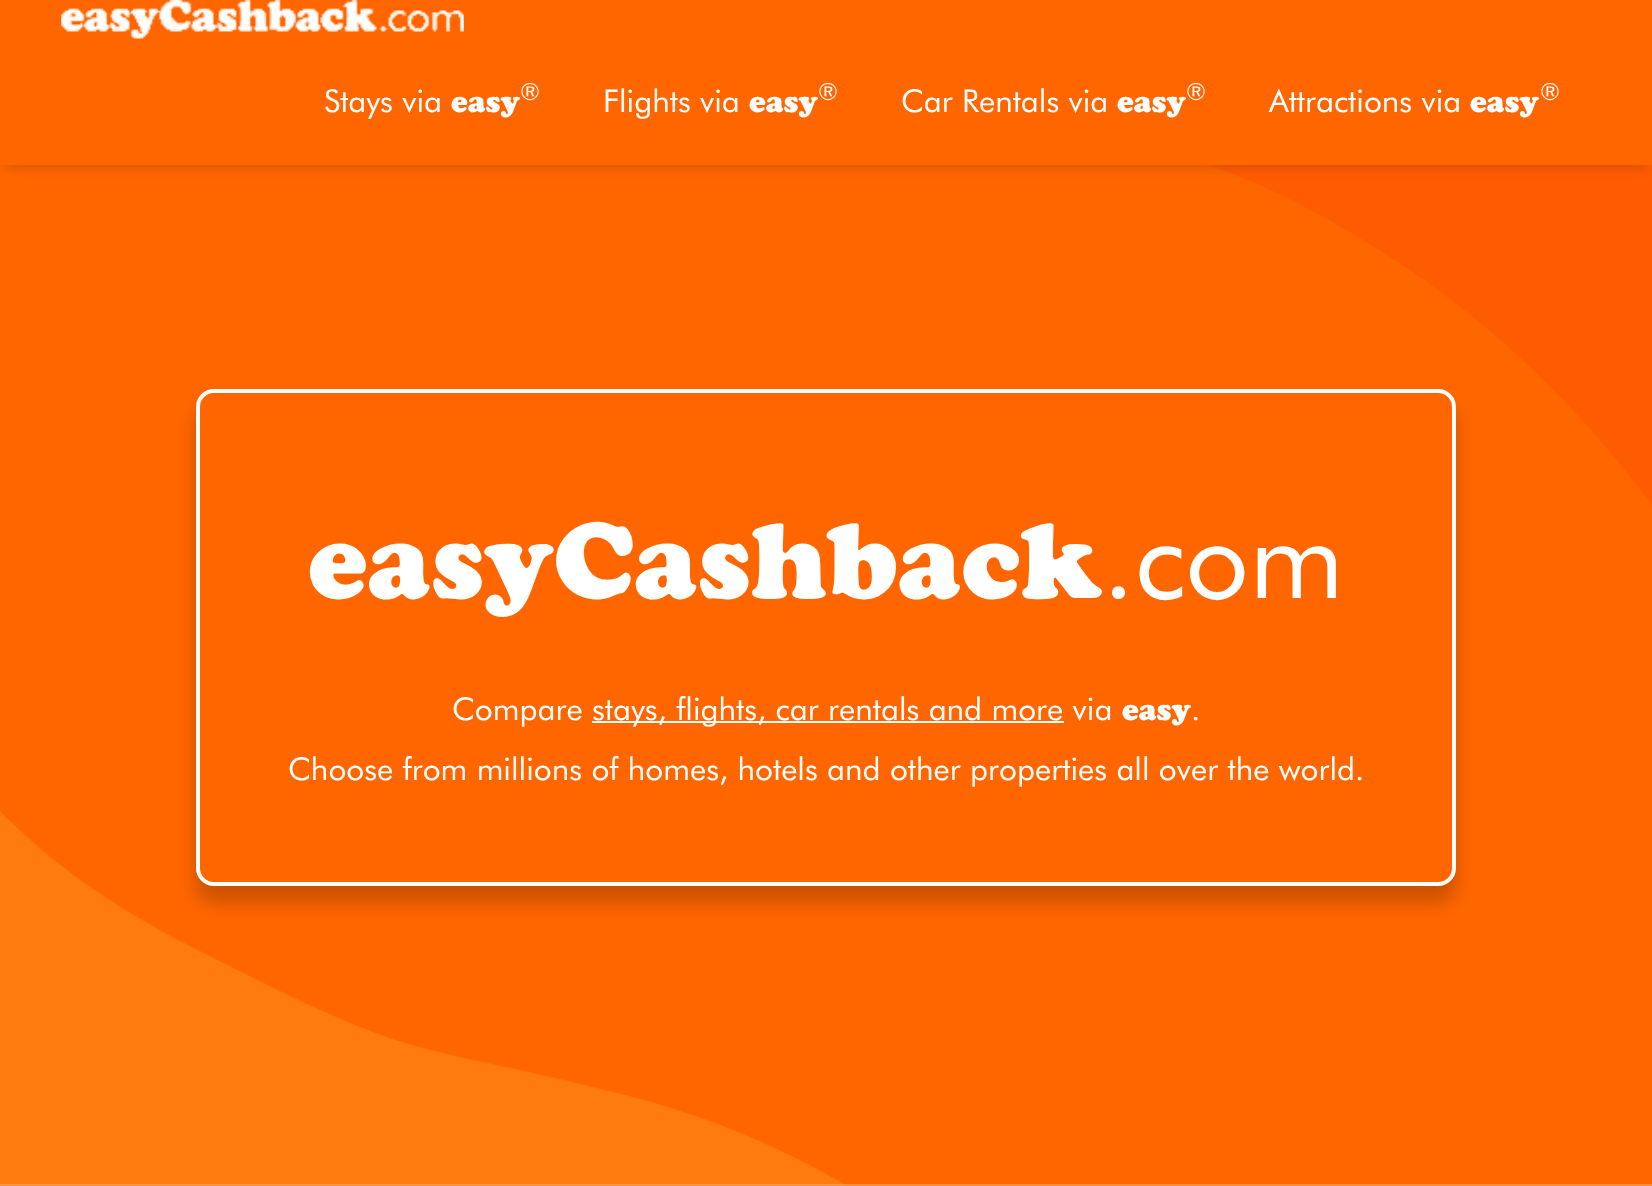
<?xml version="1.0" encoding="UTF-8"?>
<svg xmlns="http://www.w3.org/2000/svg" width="1652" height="1186">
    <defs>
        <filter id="blur1" x="-50%" y="-200%" width="200%" height="500%"><feGaussianBlur stdDeviation="6"/></filter>
        <filter id="blur2" x="-50%" y="-200%" width="200%" height="500%"><feGaussianBlur stdDeviation="9"/></filter>
    </defs>
    <rect width="100%" height="100%" fill="#FFFFFF"/>
    <image x="0" y="165" width="1652" height="1020" href="img_02.png"/>
    <rect x="5" y="14" width="1642" height="154" fill="#000000" fill-opacity="0.14" filter="url(#blur1)"/>
    <rect x="0" y="0" width="1652" height="165" fill="#FF6600"/>
    <image x="61" y="0" width="403" height="39" href="img_01.png"/>
    <text x="324" y="112" font-family="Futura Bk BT" font-size="31.5" fill="#FFFFFF">Stays via</text>
    <text x="451" y="112" font-family="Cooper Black" font-size="31.5" font-weight="900" fill="#FFFFFF">easy</text>
    <text x="520" y="100" font-family="Futura Bk BT" font-size="24" fill="#FFFFFF">®</text>
    <text x="603" y="112" font-family="Futura Bk BT" font-size="31.5" fill="#FFFFFF">Flights via</text>
    <text x="749" y="112" font-family="Cooper Black" font-size="31.5" font-weight="900" fill="#FFFFFF">easy</text>
    <text x="818" y="100" font-family="Futura Bk BT" font-size="24" fill="#FFFFFF">®</text>
    <text x="901" y="112" font-family="Futura Bk BT" font-size="31.5" fill="#FFFFFF">Car Rentals via</text>
    <text x="1117" y="112" font-family="Cooper Black" font-size="31.5" font-weight="900" fill="#FFFFFF">easy</text>
    <text x="1186" y="100" font-family="Futura Bk BT" font-size="24" fill="#FFFFFF">®</text>
    <text x="1269" y="112" font-family="Futura Bk BT" font-size="31.5" fill="#FFFFFF">Attractions via</text>
    <text x="1470" y="112" font-family="Cooper Black" font-size="31.5" font-weight="900" fill="#FFFFFF">easy</text>
    <text x="1540" y="100" font-family="Futura Bk BT" font-size="24" fill="#FFFFFF">®</text>
    <rect x="0" y="1185" width="1652" height="1" fill="#FF8B30"/>
    <rect x="196" y="406" width="1260" height="497" rx="18" fill="#000000" fill-opacity="0.2" filter="url(#blur2)"/>
    <rect x="198" y="391" width="1256" height="493" rx="16" fill="#FF6600" stroke="#FFFFFF" stroke-width="4"/>
    <text x="308" y="598" font-family="Cooper Black" font-size="112" font-weight="900" fill="#FFFFFF">easyCashback</text>
    <text x="1102" y="598" font-family="Futura Bk BT" font-size="112" fill="#FFFFFF">.com</text>
    <text x="452" y="720" font-family="Futura Bk BT" font-size="31.5" fill="#FFFFFF">Compare</text>
    <rect x="592" y="721" width="472" height="2" fill="#FFFFFF"/>
    <text x="592" y="720" font-family="Futura Bk BT" font-size="31.5" fill="#FFFFFF">stays, flights, car rentals and more via</text>
    <text x="1122" y="720" font-family="Cooper Black" font-size="31.5" font-weight="900" fill="#FFFFFF">easy</text>
    <text x="1191" y="720" font-family="Futura Bk BT" font-size="31.5" fill="#FFFFFF">.</text>
    <text x="288" y="780" font-family="Futura Bk BT" font-size="31.5" fill="#FFFFFF">Choose from millions of homes, hotels and other properties all over the world.</text>
</svg>
